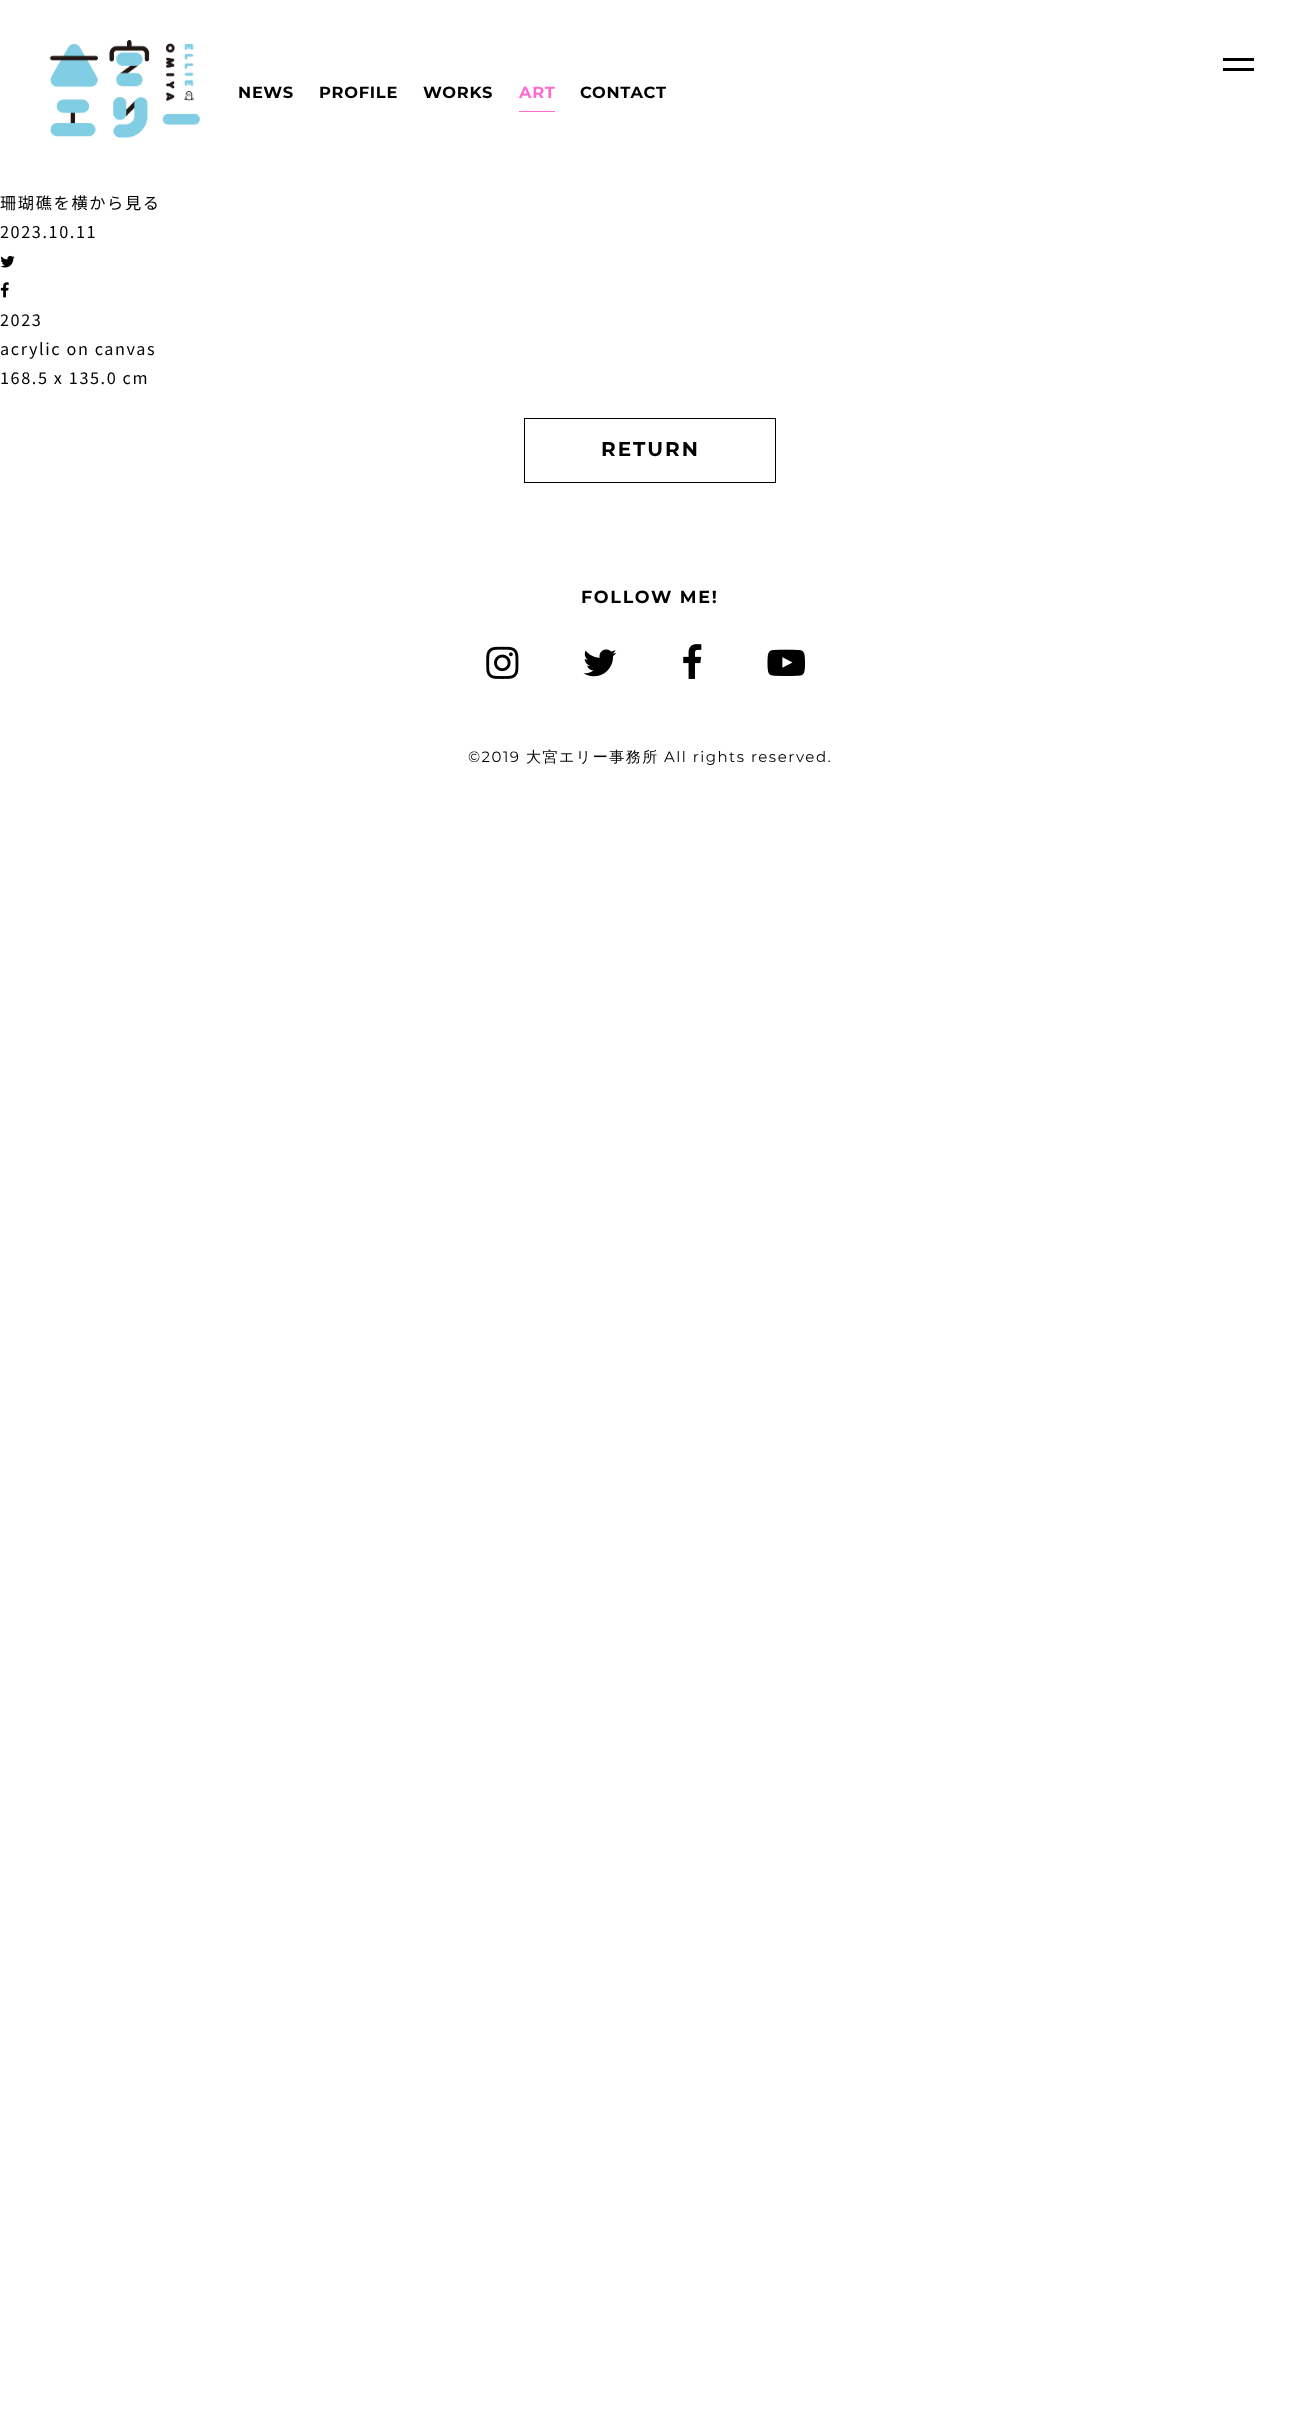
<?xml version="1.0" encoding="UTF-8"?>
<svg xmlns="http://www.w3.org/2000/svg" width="1300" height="2435">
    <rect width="100%" height="100%" fill="#FFFFFF"/>
    <image x="50" y="40" width="150" height="98" href="img_01.png"/>
    <rect x="1223" y="58" width="31" height="3" fill="#000000"/>
    <rect x="1223" y="68" width="31" height="3" fill="#000000"/>
    <text x="238" y="98" font-family="Montserrat" font-size="16.25" font-weight="700" letter-spacing="0.75" fill="#000000">NEWS</text>
    <text x="319" y="98" font-family="Montserrat" font-size="16.25" font-weight="700" letter-spacing="0.75" fill="#000000">PROFILE</text>
    <text x="423" y="98" font-family="Montserrat" font-size="16.25" font-weight="700" letter-spacing="0.75" fill="#000000">WORKS</text>
    <text x="519" y="98" font-family="Montserrat" font-size="16.25" font-weight="700" letter-spacing="0.75" fill="#FF6ACC">ART</text>
    <rect x="519" y="111" width="36" height="1" fill="#FF6ACC"/>
    <text x="580" y="98" font-family="Montserrat" font-size="16.25" font-weight="700" letter-spacing="0.75" fill="#000000">CONTACT</text>
    <text font-family="Noto Sans JP" font-size="16.25" letter-spacing="1.6" fill="#000000">
        <tspan x="0" y="209">珊瑚礁を横から見る</tspan>
        <tspan x="0" y="238">2023.10.11</tspan>
    </text>
    <image x="0" y="255" width="15" height="13" href="img_02.png"/>
    <image x="0" y="282" width="9" height="16" href="img_03.png"/>
    <text font-family="Noto Sans JP" font-size="16.25" letter-spacing="1.6" fill="#000000">
        <tspan x="0" y="326">2023</tspan>
        <tspan x="0" y="355">acrylic on canvas</tspan>
        <tspan x="0" y="384">168.5 x 135.0 cm</tspan>
    </text>
    <rect x="524.5" y="418.5" width="251" height="64" fill="none" stroke="#000000"/>
    <text x="601" y="456" font-family="Montserrat" font-size="20" font-weight="700" letter-spacing="2" fill="#000000">RETURN</text>
    <text x="581" y="603" font-family="Montserrat" font-size="17.5" font-weight="700" letter-spacing="1.75" fill="#000000">FOLLOW ME!</text>
    <image x="486" y="646" width="33" height="33" href="img_04.png"/>
    <image x="583" y="649" width="34" height="28" href="img_05.png"/>
    <image x="683" y="644" width="19" height="35" href="img_06.png"/>
    <image x="767" y="649" width="38" height="28" href="img_07.png"/>
    <text x="468" y="762" font-family="Montserrat" font-size="15" letter-spacing="1.5" fill="#000000">©2019</text>
    <text x="526" y="762" font-family="WenQuanYi Zen Hei" font-size="15" font-weight="500" letter-spacing="1.5" fill="#000000">大宮エリー事務所</text>
    <text x="664" y="762" font-family="Montserrat" font-size="15" letter-spacing="1.5" fill="#000000">All rights reserved.</text>
</svg>
